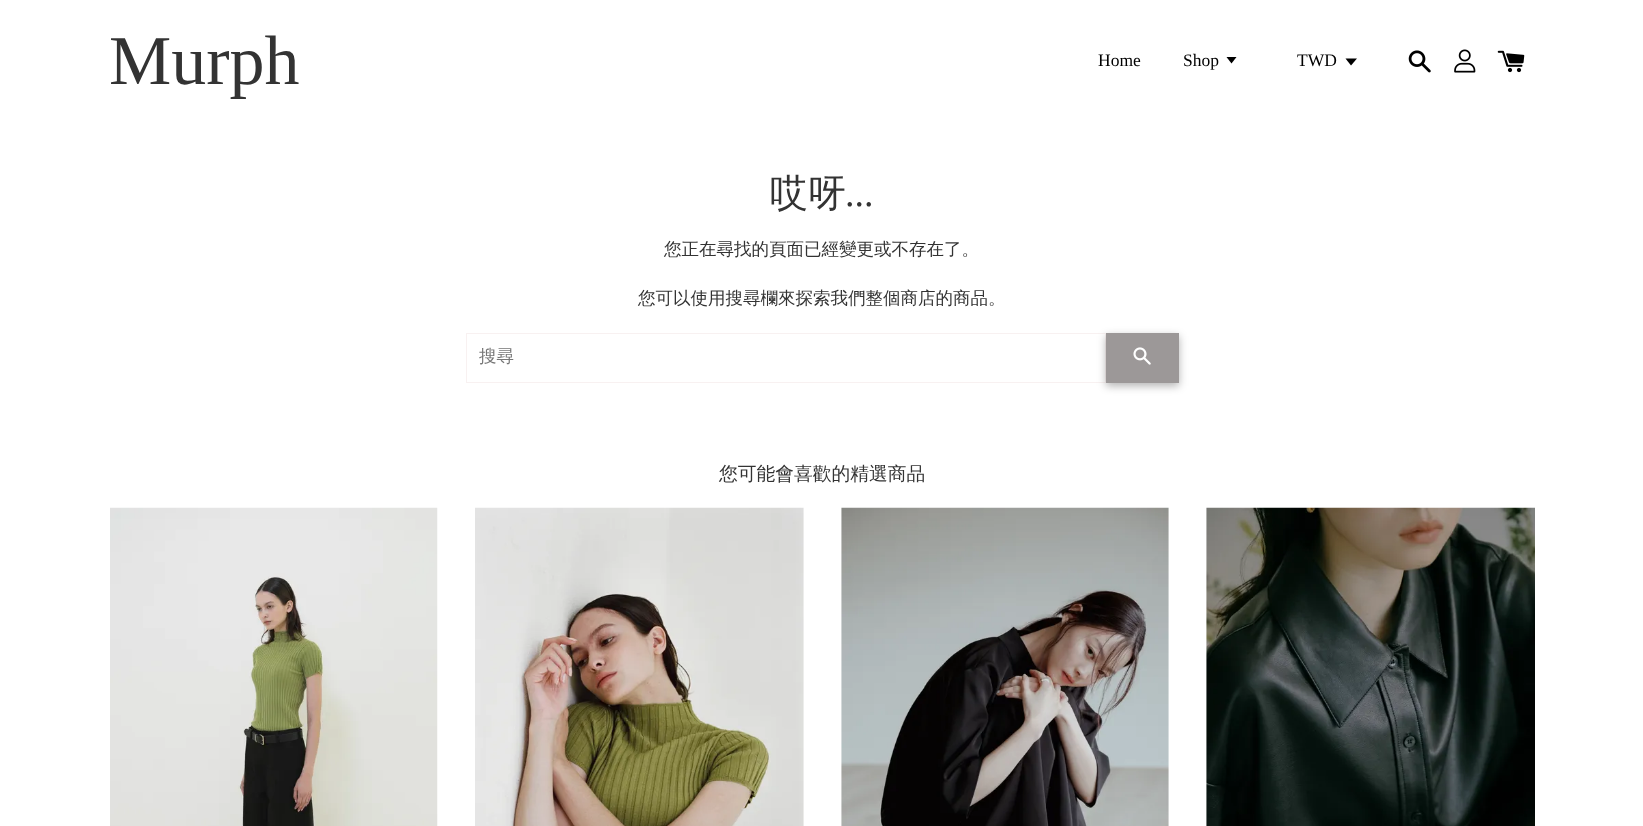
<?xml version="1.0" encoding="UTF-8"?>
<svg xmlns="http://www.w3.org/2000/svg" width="1643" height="826">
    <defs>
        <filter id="blur1" x="-50%" y="-200%" width="200%" height="500%"><feGaussianBlur stdDeviation="4.5"/></filter>
    </defs>
    <rect width="100%" height="100%" fill="#FFFFFF"/>
    <text x="109" y="84" font-family="Liberation Serif" font-size="70" fill="#333333">Murph</text>
    <text x="1098" y="66" font-family="Liberation Serif" font-size="17.5" fill="#000000">Home</text>
    <text x="1183" y="66" font-family="Liberation Serif" font-size="17.5" fill="#000000">Shop</text>
    <path d="M 1226.5 57 L 1231.5 63.5 L 1236.5 57 Z" fill="#000000"/>
    <text x="1297" y="66" font-family="Liberation Serif" font-size="17.5" fill="#000000">TWD</text>
    <path d="M 1345.5 58.5 L 1351 65.5 L 1357 58.5 Z" fill="#000000"/>
    <image x="1408" y="50" width="23" height="23" href="img_01.png"/>
    <image x="1454" y="49" width="22" height="24" href="img_02.png"/>
    <image x="1497" y="50" width="28" height="23" href="img_03.png"/>
    <text x="770" y="206" font-family="WenQuanYi Zen Hei" font-size="38" font-weight="500" fill="#333333">哎呀</text>
    <text x="845" y="206" font-family="Liberation Serif" font-size="38" fill="#333333">...</text>
    <text x="664" y="255" font-family="WenQuanYi Zen Hei" font-size="17.5" font-weight="500" fill="#333333">您正在尋找的頁面已經變更或不存在了。</text>
    <text x="638" y="304" font-family="WenQuanYi Zen Hei" font-size="17.5" font-weight="500" fill="#333333">您可以使用搜尋欄來探索我們整個商店的商品。</text>
    <rect x="466.5" y="333.5" width="639" height="49" fill="none" stroke="#F8F1F1"/>
    <text x="479" y="362" font-family="WenQuanYi Zen Hei" font-size="17.5" font-weight="500" fill="#757575">搜尋</text>
    <rect x="1106" y="336" width="73" height="50" fill="#000000" fill-opacity="0.3" filter="url(#blur1)"/>
    <rect x="1106" y="333" width="73" height="50" fill="#9C9898"/>
    <image x="1133" y="347" width="18" height="18" href="img_04.png"/>
    <text x="719" y="480" font-family="WenQuanYi Zen Hei" font-size="18.75" font-weight="500" fill="#333333">您可能會喜歡的精選商品</text>
    <image x="110" y="507" width="328" height="319" href="img_05.png"/>
    <image x="475" y="507" width="329" height="319" href="img_06.png"/>
    <image x="841" y="507" width="328" height="319" href="img_07.png"/>
    <image x="1206" y="507" width="329" height="319" href="img_08.png"/>
</svg>
